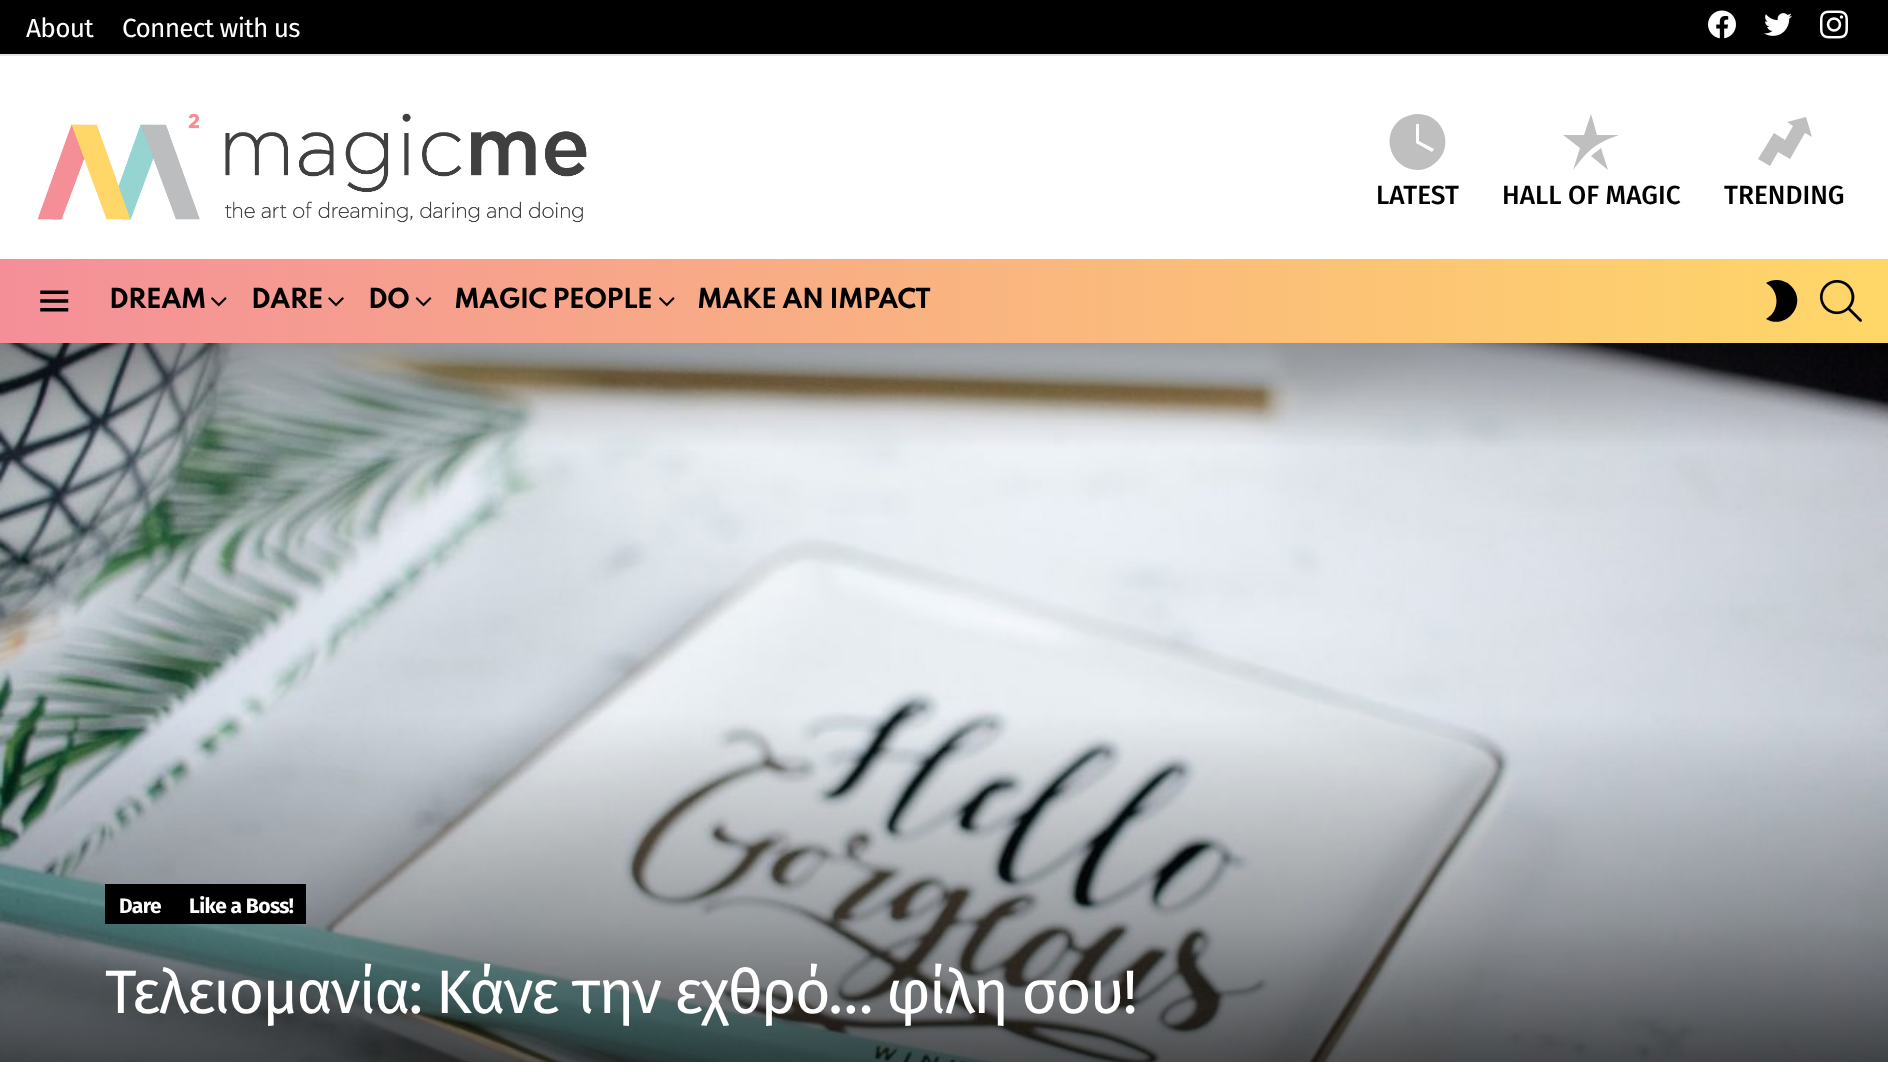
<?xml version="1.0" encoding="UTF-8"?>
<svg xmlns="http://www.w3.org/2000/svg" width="1888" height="1087">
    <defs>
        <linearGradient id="g1" gradientUnits="userSpaceOnUse" x1="0" y1="301" x2="1888" y2="301"><stop offset="0" stop-color="#F48F99"/><stop offset="1" stop-color="#FFD768"/></linearGradient>
    </defs>
    <rect width="100%" height="100%" fill="#FFFFFF"/>
    <rect x="0" y="0" width="1888" height="54" fill="#000000"/>
    <rect x="0" y="54" width="1888" height="2" fill="#E6E6E6"/>
    <text x="26" y="37" font-family="Fira Sans" font-size="26.25" letter-spacing="-0.75" fill="#FFFFFF">About</text>
    <text x="122" y="37" font-family="Fira Sans" font-size="26.25" letter-spacing="-0.75" fill="#FFFFFF">Connect with us</text>
    <image x="1708" y="10" width="28" height="29" href="img_01.png"/>
    <image x="1764" y="13" width="28" height="23" href="img_02.png"/>
    <image x="1820" y="10" width="28" height="29" href="img_03.png"/>
    <image x="37" y="113" width="550" height="110" href="img_04.png"/>
    <path d="M 1418 114 C 1412 114 1406 116 1401 119 C 1379 135 1391 170 1418 170 C 1423 170 1429 168 1434 164 C 1456 148 1444 114 1418 114 Z M 1432 152 L 1416 143 V 124 H 1419 V 141 L 1434 149 Z" fill="#BFBFBF"/>
    <text x="1376" y="204" font-family="Fira Sans" font-size="26.25" font-weight="500" fill="#000000">LATEST</text>
    <path d="M 1594 147 C 1601 142 1610 138 1619 135 H 1597 L 1591 114 L 1584 135 H 1563 L 1580 148 L 1573 170 C 1579 162 1586 153 1594 147 Z M 1591 156 L 1608 170 L 1601 148 Z" fill="#BFBFBF"/>
    <text x="1502" y="204" font-family="Fira Sans" font-size="26.25" font-weight="500" fill="#000000">HALL OF MAGIC</text>
    <path d="M 1785 140 L 1793 126 L 1787 122 L 1806 117 L 1812 137 L 1805 133 L 1790 159 L 1778 152 L 1770 166 L 1758 159 L 1774 133 Z" fill="#BFBFBF"/>
    <text x="1724" y="204" font-family="Fira Sans" font-size="26.25" font-weight="500" fill="#000000">TRENDING</text>
    <rect x="0" y="259" width="1888" height="84" fill="url(#g1)"/>
    <image x="40" y="290" width="29" height="22" href="img_05.png"/>
    <text x="109" y="308" font-family="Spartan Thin" font-size="24.5" font-weight="700" letter-spacing="-0.75" fill="#000000">DREAM</text>
    <image x="211" y="297" width="16" height="10" href="img_06.png"/>
    <text x="251" y="308" font-family="Spartan Thin" font-size="24.5" font-weight="700" letter-spacing="-0.75" fill="#000000">DARE</text>
    <image x="328" y="297" width="16" height="10" href="img_07.png"/>
    <text x="368" y="308" font-family="Spartan Thin" font-size="24.5" font-weight="700" letter-spacing="-0.75" fill="#000000">DO</text>
    <image x="415" y="297" width="17" height="10" href="img_08.png"/>
    <text x="454" y="308" font-family="Spartan Thin" font-size="24.5" font-weight="700" letter-spacing="-0.75" fill="#000000">MAGIC PEOPLE</text>
    <image x="659" y="297" width="16" height="10" href="img_09.png"/>
    <text x="697" y="308" font-family="Spartan Thin" font-size="24.5" font-weight="700" letter-spacing="-0.75" fill="#000000">MAKE AN IMPACT</text>
    <path d="M 1776 280 C 1773 280 1769 281 1766 283 C 1780 291 1780 311 1766 319 C 1787 331 1809 302 1790 285 C 1787 282 1781 280 1776 280 Z" fill="#000000"/>
    <image x="1820" y="280" width="42" height="42" href="img_10.png"/>
    <image x="0" y="343" width="1888" height="719" href="img_11.png"/>
    <rect x="105" y="884" width="201" height="40" fill="#000000"/>
    <text x="119" y="913" font-family="Fira Sans" font-size="21" font-weight="700" letter-spacing="-0.6" fill="#FFFFFF">Dare</text>
    <text x="189" y="913" font-family="Fira Sans" font-size="21" font-weight="700" letter-spacing="-0.6" fill="#FFFFFF">Like a Boss!</text>
    <text x="105" y="1013" font-family="Fira Sans" font-size="61.25" letter-spacing="-1.85" fill="#FFFFFF">Τελειομανία: Κάνε την εχθρό… φίλη σου!</text>
</svg>
